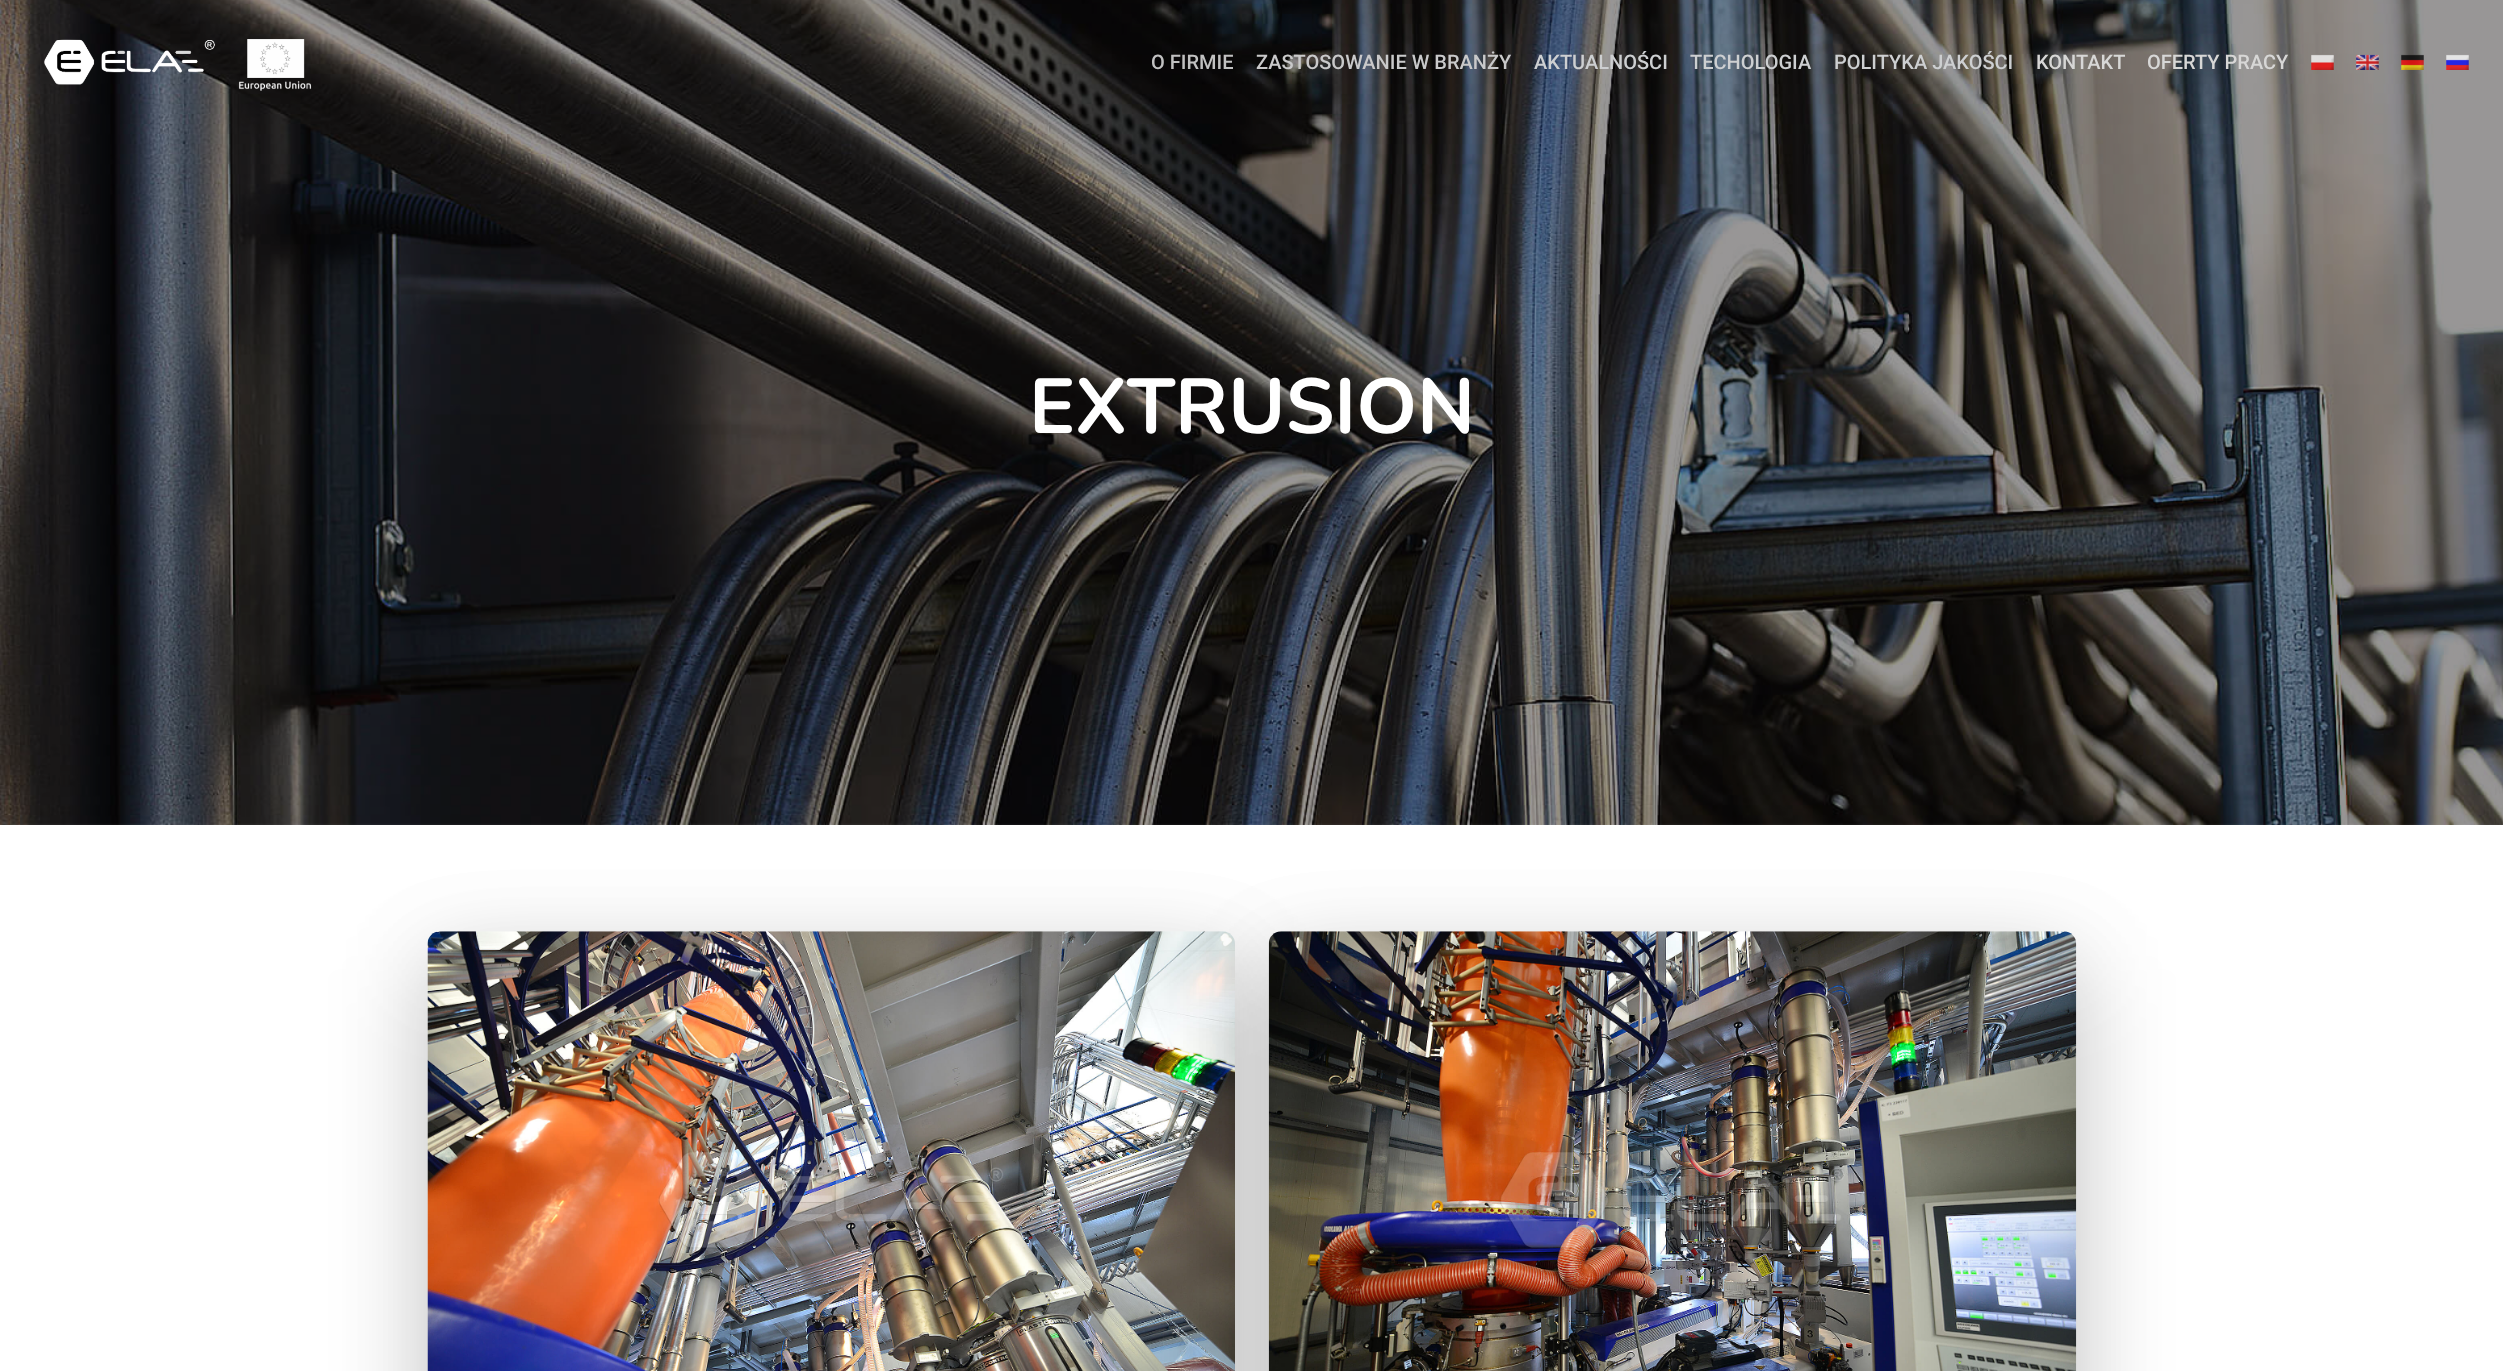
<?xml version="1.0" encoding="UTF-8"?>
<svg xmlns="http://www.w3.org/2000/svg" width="2503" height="1371">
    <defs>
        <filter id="blur1" x="-50%" y="-200%" width="200%" height="500%"><feGaussianBlur stdDeviation="44"/></filter>
        <filter id="blur2" x="-50%" y="-200%" width="200%" height="500%"><feGaussianBlur stdDeviation="50"/></filter>
    </defs>
    <rect width="100%" height="100%" fill="#FFFFFF"/>
    <image x="0" y="0" width="2503" height="825" href="img_06.png"/>
    <image x="44" y="39" width="268" height="52" href="img_01.png"/>
    <text x="1151" y="69" font-family="Roboto" font-size="20" font-weight="500" fill="#C1C1C1">O FIRMIE</text>
    <text x="1256" y="69" font-family="Roboto" font-size="20" font-weight="500" fill="#C9C9CA">ZASTOSOWANIE W BRANŻY</text>
    <text x="1534" y="69" font-family="Roboto" font-size="20" font-weight="500" fill="#CDCFD1">AKTUALNOŚCI</text>
    <text x="1690" y="69" font-family="Roboto" font-size="20" font-weight="500" fill="#CDCFD1">TECHOLOGIA</text>
    <text x="1834" y="69" font-family="Roboto" font-size="20" font-weight="500" fill="#CDCFD1">POLITYKA JAKOŚCI</text>
    <text x="2036" y="69" font-family="Roboto" font-size="20" font-weight="500" fill="#D7D7D6">KONTAKT</text>
    <text x="2147" y="69" font-family="Roboto" font-size="20" font-weight="500" fill="#D7D7D6">OFERTY PRACY</text>
    <image x="2311" y="54" width="23" height="16" href="img_02.png"/>
    <image x="2356" y="54" width="23" height="16" href="img_03.png"/>
    <image x="2401" y="54" width="23" height="16" href="img_04.png"/>
    <image x="2446" y="54" width="23" height="16" href="img_05.png"/>
    <text x="1029" y="433" font-family="Nunito" font-size="77.5" font-weight="700" fill="#FFFFFF">EXTRUSION</text>
    <rect x="428" y="956" width="807" height="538" rx="13" fill="#000000" fill-opacity="0.12" filter="url(#blur1)"/>
    <rect x="428" y="969" width="807" height="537" rx="13" fill="#000000" fill-opacity="0.14" filter="url(#blur2)"/>
    <image x="427" y="931" width="808" height="440" href="img_07.png"/>
    <rect x="1269" y="956" width="807" height="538" rx="13" fill="#000000" fill-opacity="0.12" filter="url(#blur1)"/>
    <rect x="1269" y="969" width="807" height="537" rx="13" fill="#000000" fill-opacity="0.14" filter="url(#blur2)"/>
    <image x="1268" y="931" width="809" height="440" href="img_08.png"/>
</svg>
